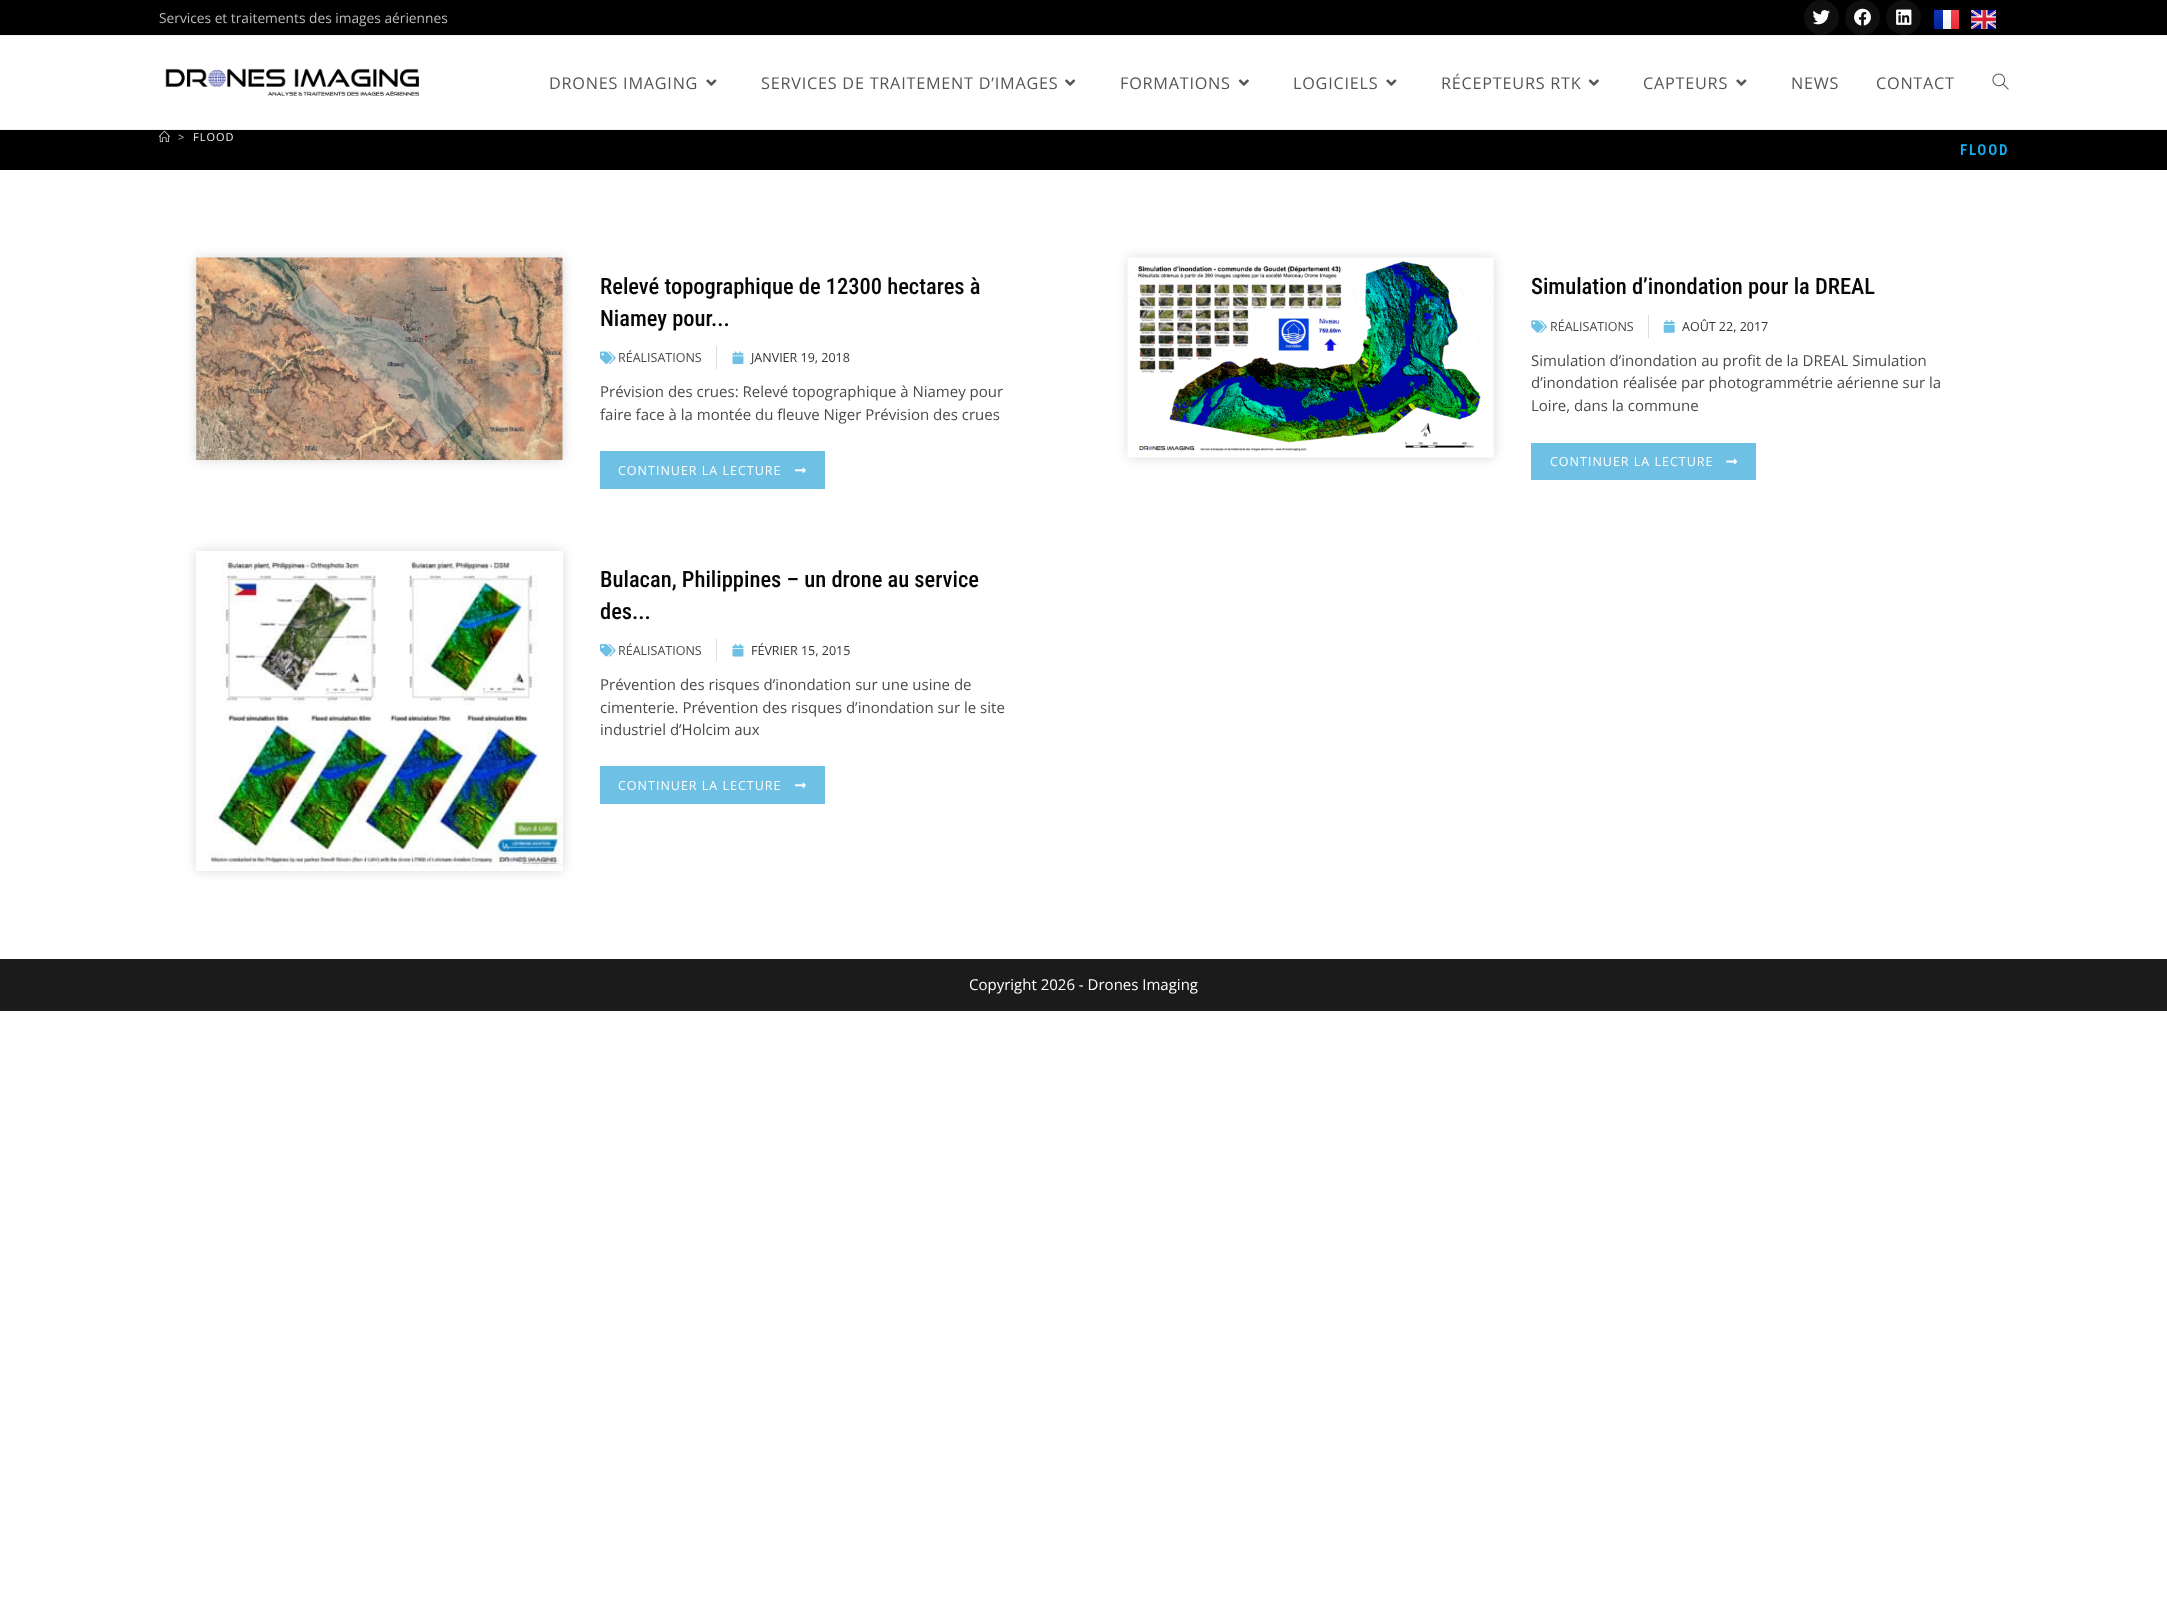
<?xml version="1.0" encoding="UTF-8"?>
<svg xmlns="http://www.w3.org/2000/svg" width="2167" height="1610">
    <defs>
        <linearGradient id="g1" gradientUnits="userSpaceOnUse" x1="1938" y1="10" x2="1938" y2="29"><stop offset="0" stop-color="#1035BB"/><stop offset="1" stop-color="#042396"/></linearGradient>
        <linearGradient id="g2" gradientUnits="userSpaceOnUse" x1="1947" y1="10" x2="1947" y2="29"><stop offset="0" stop-color="#FFFFFF"/><stop offset="1" stop-color="#F0F0F0"/></linearGradient>
        <linearGradient id="g3" gradientUnits="userSpaceOnUse" x1="1953" y1="10" x2="1953" y2="29"><stop offset="0" stop-color="#F44653"/><stop offset="1" stop-color="#EE2A39"/></linearGradient>
        <filter id="blur1" x="-50%" y="-200%" width="200%" height="500%"><feGaussianBlur stdDeviation="6"/></filter>
        <clipPath id="clip1"><path d="M 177 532 H 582 V 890 H 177 Z M 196 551 H 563 V 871 H 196 Z" clip-rule="evenodd"/></clipPath>
    </defs>
    <rect width="100%" height="100%" fill="#FFFFFF"/>
    <rect x="0" y="0" width="2167" height="35" fill="#000000"/>
    <rect x="0" y="35" width="2167" height="1" fill="#F1F1F1"/>
    <text x="159" y="23" font-family="Open Sans" font-size="13.75" fill="#BABABA">Services et traitements des images aériennes</text>
    <circle cx="1821.5" cy="17.5" r="17.5" fill="#0F0F0F"/>
    <image x="1812" y="10" width="18" height="15" href="img_01.png"/>
    <circle cx="1862.5" cy="17.5" r="17.5" fill="#0F0F0F"/>
    <image x="1854" y="8" width="17" height="18" href="img_02.png"/>
    <circle cx="1903.5" cy="17.5" r="17.5" fill="#0F0F0F"/>
    <image x="1896" y="9" width="16" height="16" href="img_03.png"/>
    <rect x="1934" y="10" width="9" height="19" fill="url(#g1)"/>
    <rect x="1943" y="10" width="8" height="19" fill="url(#g2)"/>
    <rect x="1951" y="10" width="8" height="19" fill="url(#g3)"/>
    <image x="1971" y="10" width="25" height="19" href="img_04.png"/>
    <rect x="0" y="129" width="2167" height="1" fill="#F1F1F1"/>
    <image x="165" y="68" width="254" height="28" href="img_05.png"/>
    <text x="549" y="89" font-family="Open Sans" font-size="16.25" letter-spacing="0.75" fill="#555555">DRONES IMAGING</text>
    <image x="706" y="79" width="11" height="7" href="img_06.png"/>
    <text x="761" y="89" font-family="Open Sans" font-size="16.25" letter-spacing="0.75" fill="#555555">SERVICES DE TRAITEMENT D’IMAGES</text>
    <image x="1065" y="79" width="11" height="7" href="img_07.png"/>
    <text x="1120" y="89" font-family="Open Sans" font-size="16.25" letter-spacing="0.75" fill="#555555">FORMATIONS</text>
    <image x="1238" y="79" width="11" height="7" href="img_08.png"/>
    <text x="1293" y="89" font-family="Open Sans" font-size="16.25" letter-spacing="0.75" fill="#555555">LOGICIELS</text>
    <image x="1386" y="79" width="11" height="7" href="img_06.png"/>
    <text x="1441" y="89" font-family="Open Sans" font-size="16.25" letter-spacing="0.75" fill="#555555">RÉCEPTEURS RTK</text>
    <image x="1588" y="79" width="11" height="7" href="img_08.png"/>
    <text x="1643" y="89" font-family="Open Sans" font-size="16.25" letter-spacing="0.75" fill="#555555">CAPTEURS</text>
    <image x="1736" y="79" width="11" height="7" href="img_06.png"/>
    <text x="1791" y="89" font-family="Open Sans" font-size="16.25" letter-spacing="0.75" fill="#555555">NEWS</text>
    <text x="1876" y="89" font-family="Open Sans" font-size="16.25" letter-spacing="0.75" fill="#555555">CONTACT</text>
    <image x="1992" y="73" width="17" height="17" href="img_09.png"/>
    <rect x="0" y="130" width="2167" height="40" fill="#000000"/>
    <image x="159" y="130" width="11" height="12" href="img_10.png"/>
    <text x="178" y="141" font-family="Open Sans" font-size="11" letter-spacing="1" fill="#C6C6C6">&gt;</text>
    <text x="193" y="141" font-family="Open Sans" font-size="11" letter-spacing="1" fill="#F2F2F2">FLOOD</text>
    <text x="1960" y="155" font-family="Roboto Condensed" font-size="15" font-weight="600" letter-spacing="1.75" fill="#13AFF0">FLOOD</text>
    <rect x="196" y="258" width="367" height="202" fill="#000000" fill-opacity="0.15" filter="url(#blur1)"/>
    <image x="196" y="257" width="367" height="203" href="img_11.png"/>
    <text font-family="Roboto Condensed" font-size="22.5" font-weight="500" fill="#070707">
        <tspan x="600" y="294">Relevé topographique de 12300 hectares à</tspan>
        <tspan x="600" y="326">Niamey pour...</tspan>
    </text>
    <image x="600" y="351" width="16" height="13" href="img_12.png"/>
    <text x="618" y="362" font-family="Open Sans" font-size="12.5" fill="#4A4A4A">RÉALISATIONS</text>
    <rect x="716" y="346" width="1" height="23" fill="#DDDDDD"/>
    <image x="732" y="351" width="12" height="14" href="img_13.png"/>
    <text x="751" y="362" font-family="Open Sans" font-size="12.5" fill="#333333">JANVIER 19, 2018</text>
    <text font-family="Open Sans" font-size="15" fill="#4A4A4A">
        <tspan x="600" y="397">Prévision des crues: Relevé topographique à Niamey pour</tspan>
        <tspan x="600" y="420">faire face à la montée du fleuve Niger Prévision des crues</tspan>
    </text>
    <rect x="600" y="451" width="225" height="38" fill="#6EC1E4"/>
    <text x="618" y="475" font-family="Open Sans" font-size="12.5" letter-spacing="1" fill="#FFFFFF">CONTINUER LA LECTURE</text>
    <image x="795" y="467" width="11" height="6" href="img_14.png"/>
    <rect x="1128" y="258" width="366" height="200" fill="#000000" fill-opacity="0.15" filter="url(#blur1)"/>
    <image x="1127" y="257" width="367" height="201" href="img_15.png"/>
    <text x="1531" y="294" font-family="Roboto Condensed" font-size="22.5" font-weight="500" fill="#070707">Simulation d’inondation pour la DREAL</text>
    <image x="1531" y="320" width="16" height="13" href="img_16.png"/>
    <text x="1550" y="331" font-family="Open Sans" font-size="12.5" fill="#4A4A4A">RÉALISATIONS</text>
    <rect x="1648" y="315" width="1" height="23" fill="#DDDDDD"/>
    <image x="1663" y="320" width="12" height="13" href="img_17.png"/>
    <text x="1682" y="331" font-family="Open Sans" font-size="12.5" fill="#333333">AOÛT 22, 2017</text>
    <text font-family="Open Sans" font-size="15" fill="#4A4A4A">
        <tspan x="1531" y="366">Simulation d’inondation au profit de la DREAL Simulation</tspan>
        <tspan x="1531" y="388">d’inondation réalisée par photogrammétrie aérienne sur la</tspan>
        <tspan x="1531" y="411">Loire, dans la commune</tspan>
    </text>
    <rect x="1531" y="443" width="225" height="37" fill="#6EC1E4"/>
    <text x="1550" y="466" font-family="Open Sans" font-size="12.5" letter-spacing="1" fill="#FFFFFF">CONTINUER LA LECTURE</text>
    <image x="1726" y="458" width="12" height="7" href="img_18.png"/>
    <g clip-path="url(#clip1)">
        <rect x="196" y="551" width="367" height="320" fill="#000000" fill-opacity="0.15" filter="url(#blur1)"/>
    </g>
    <image x="209" y="556" width="354" height="311" href="img_19.png"/>
    <text font-family="Roboto Condensed" font-size="22.5" font-weight="500" fill="#070707">
        <tspan x="600" y="587">Bulacan, Philippines – un drone au service</tspan>
        <tspan x="600" y="619">des...</tspan>
    </text>
    <image x="600" y="644" width="16" height="13" href="img_20.png"/>
    <text x="618" y="655" font-family="Open Sans" font-size="12.5" fill="#4A4A4A">RÉALISATIONS</text>
    <rect x="716" y="639" width="1" height="22" fill="#DDDDDD"/>
    <image x="732" y="644" width="12" height="13" href="img_21.png"/>
    <text x="751" y="655" font-family="Open Sans" font-size="12.5" fill="#333333">FÉVRIER 15, 2015</text>
    <text font-family="Open Sans" font-size="15" fill="#4A4A4A">
        <tspan x="600" y="690">Prévention des risques d’inondation sur une usine de</tspan>
        <tspan x="600" y="713">cimenterie. Prévention des risques d’inondation sur le site</tspan>
        <tspan x="600" y="735">industriel d’Holcim aux</tspan>
    </text>
    <rect x="600" y="766" width="225" height="38" fill="#6EC1E4"/>
    <text x="618" y="790" font-family="Open Sans" font-size="12.5" letter-spacing="1" fill="#FFFFFF">CONTINUER LA LECTURE</text>
    <image x="795" y="782" width="11" height="6" href="img_14.png"/>
    <rect x="0" y="959" width="2167" height="52" fill="#1B1B1B"/>
    <text x="969" y="990" font-family="Open Sans" font-size="15" fill="#FFFFFF">Copyright 2026 - Drones Imaging</text>
</svg>
